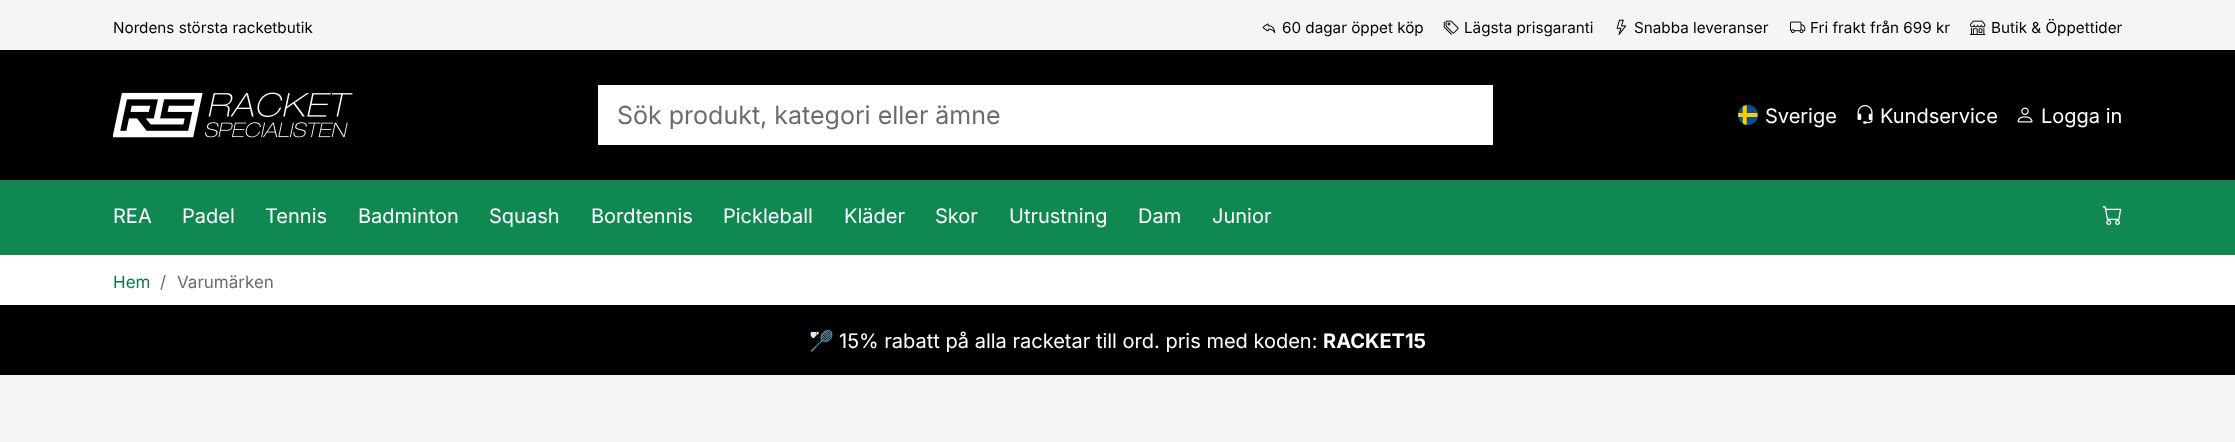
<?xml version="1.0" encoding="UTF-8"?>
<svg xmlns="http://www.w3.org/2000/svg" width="2235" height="442">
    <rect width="100%" height="100%" fill="#F5F5F5"/>
    <text x="113" y="33" font-family="Inter" font-size="15.25" fill="#000000">Nordens största racketbutik</text>
    <image x="1262" y="23" width="14" height="11" href="img_01.png"/>
    <text x="1282" y="33" font-family="Inter" font-size="15.25" fill="#000000">60 dagar öppet köp</text>
    <image x="1443" y="20" width="16" height="15" href="img_02.png"/>
    <text x="1464" y="33" font-family="Inter" font-size="15.25" fill="#000000">Lägsta prisgaranti</text>
    <image x="1616" y="19" width="11" height="16" href="img_03.png"/>
    <text x="1634" y="33" font-family="Inter" font-size="15.25" fill="#000000">Snabba leveranser</text>
    <image x="1790" y="21" width="16" height="13" href="img_04.png"/>
    <text x="1810" y="33" font-family="Inter" font-size="15.25" fill="#000000">Fri frakt från 699 kr</text>
    <image x="1970" y="20" width="16" height="15" href="img_05.png"/>
    <text x="1991" y="33" font-family="Inter" font-size="15.25" fill="#000000">Butik &amp; Öppettider</text>
    <rect x="0" y="50" width="2235" height="130" fill="#000000"/>
    <image x="113" y="92" width="240" height="46" href="img_06.png"/>
    <rect x="598" y="85" width="895" height="60" fill="#FFFFFF"/>
    <text x="617" y="124" font-family="Inter" font-size="25" fill="#6C6C6C">Sök produkt, kategori eller ämne</text>
    <image x="1738" y="105" width="20" height="20" href="img_07.png"/>
    <text x="1765" y="123" font-family="Inter" font-size="20" fill="#FFFFFF">Sverige</text>
    <image x="1857" y="105" width="16" height="19" href="img_08.png"/>
    <text x="1880" y="123" font-family="Inter" font-size="20" fill="#FFFFFF">Kundservice</text>
    <image x="2017" y="107" width="16" height="16" href="img_09.png"/>
    <text x="2041" y="123" font-family="Inter" font-size="20" fill="#FFFFFF">Logga in</text>
    <rect x="0" y="180" width="2235" height="75" fill="#0F8852"/>
    <text x="113" y="223" font-family="Inter" font-size="20" fill="#FFFFFF">REA</text>
    <text x="182" y="223" font-family="Inter" font-size="20" fill="#FFFFFF">Padel</text>
    <text x="265" y="223" font-family="Inter" font-size="20" fill="#FFFFFF">Tennis</text>
    <text x="358" y="223" font-family="Inter" font-size="20" fill="#FFFFFF">Badminton</text>
    <text x="489" y="223" font-family="Inter" font-size="20" fill="#FFFFFF">Squash</text>
    <text x="591" y="223" font-family="Inter" font-size="20" fill="#FFFFFF">Bordtennis</text>
    <text x="723" y="223" font-family="Inter" font-size="20" fill="#FFFFFF">Pickleball</text>
    <text x="844" y="223" font-family="Inter" font-size="20" fill="#FFFFFF">Kläder</text>
    <text x="935" y="223" font-family="Inter" font-size="20" fill="#FFFFFF">Skor</text>
    <text x="1009" y="223" font-family="Inter" font-size="20" fill="#FFFFFF">Utrustning</text>
    <text x="1138" y="223" font-family="Inter" font-size="20" fill="#FFFFFF">Dam</text>
    <text x="1212" y="223" font-family="Inter" font-size="20" fill="#FFFFFF">Junior</text>
    <image x="2102" y="206" width="20" height="19" href="img_10.png"/>
    <rect x="0" y="255" width="2235" height="50" fill="#FFFFFF"/>
    <text x="113" y="288" font-family="Inter" font-size="17" fill="#0D7A4A">Hem</text>
    <text x="160" y="288" font-family="Inter" font-size="17" fill="#6C6C6C">/</text>
    <text x="177" y="288" font-family="Inter" font-size="17" fill="#6C6C6C">Varumärken</text>
    <rect x="0" y="305" width="2235" height="70" fill="#000000"/>
    <text x="809" y="348" font-family="Noto Color Emoji" font-size="20" fill="#FFFFFF">🏸</text>
    <text x="839" y="348" font-family="Inter" font-size="20" fill="#FFFFFF">15% rabatt på alla racketar till ord. pris med koden:</text>
    <text x="1323" y="348" font-family="Inter" font-size="20" font-weight="700" fill="#FFFFFF">RACKET15</text>
</svg>
